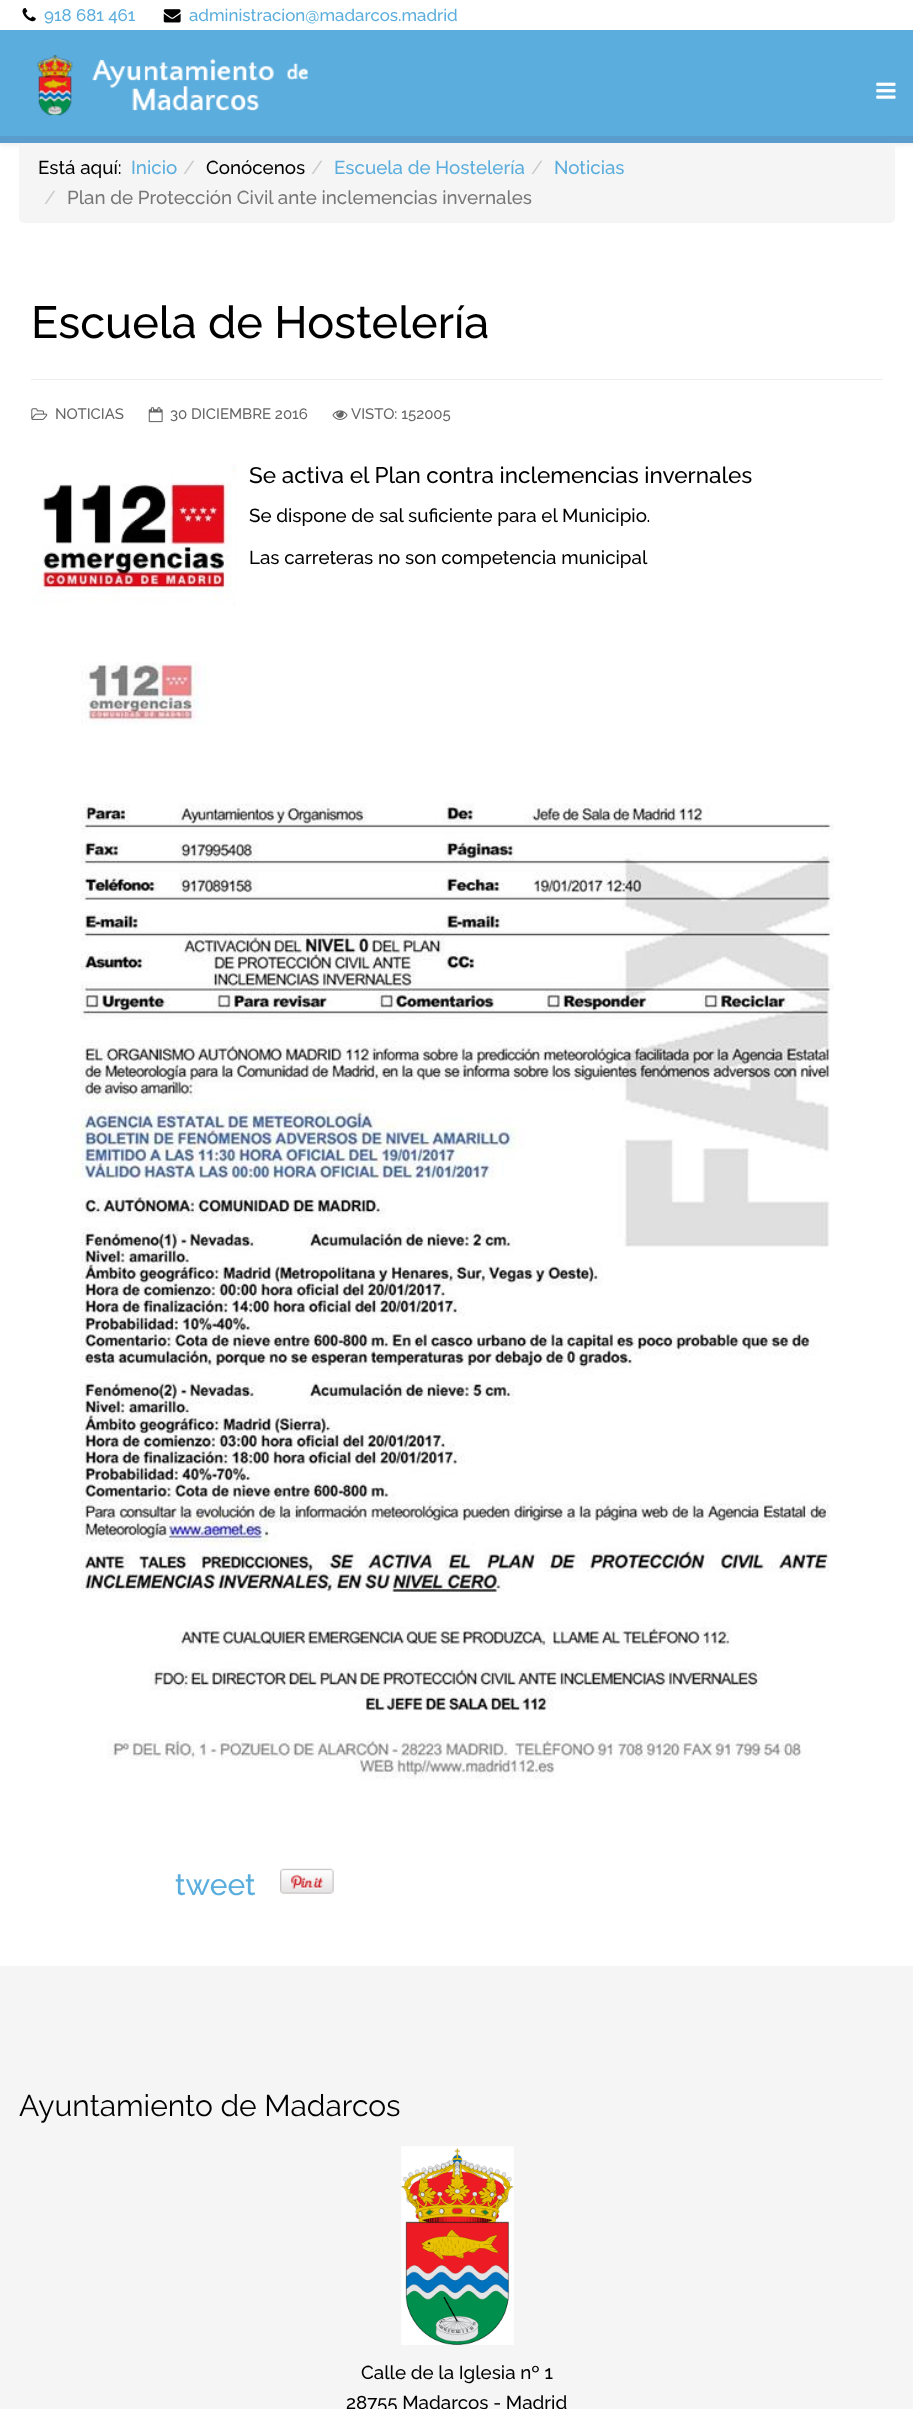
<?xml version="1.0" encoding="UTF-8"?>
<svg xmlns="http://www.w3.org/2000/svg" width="913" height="2409">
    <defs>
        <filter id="blur1" x="-50%" y="-200%" width="200%" height="500%"><feGaussianBlur stdDeviation="2"/></filter>
    </defs>
    <rect width="100%" height="100%" fill="#FFFFFF"/>
    <image x="22" y="8" width="14" height="14" href="img_01.png"/>
    <text x="44" y="21" font-family="Raleway" font-size="16.9" font-weight="500" fill="#5AADDD">918 681 461</text>
    <image x="163" y="9" width="18" height="14" href="img_02.png"/>
    <text x="189" y="21" font-family="Raleway" font-size="16.9" font-weight="500" fill="#5AADDD">administracion@madarcos.madrid</text>
    <rect x="0" y="34" width="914" height="112" fill="#000000" fill-opacity="0.05" filter="url(#blur1)"/>
    <rect x="0" y="30" width="913" height="106" fill="#5AADDD"/>
    <rect x="0" y="136" width="913" height="7" fill="#5A9DCD"/>
    <image x="37" y="55" width="271" height="61" href="img_03.png"/>
    <image x="876" y="82" width="20" height="17" href="img_04.png"/>
    <rect x="19" y="143" width="876" height="80" rx="5" fill="#F5F5F5"/>
    <text x="38" y="174" font-family="Raleway" font-size="18.75" font-weight="500" fill="#000000">Está aquí:</text>
    <text x="131" y="174" font-family="Raleway" font-size="18.75" font-weight="500" fill="#5AADDD">Inicio</text>
    <text x="183" y="174" font-family="Raleway" font-size="18.75" font-weight="500" fill="#CCCCCC">/</text>
    <text x="206" y="174" font-family="Raleway" font-size="18.75" font-weight="500" fill="#000000">Conócenos</text>
    <text x="311" y="174" font-family="Raleway" font-size="18.75" font-weight="500" fill="#CCCCCC">/</text>
    <text x="334" y="174" font-family="Raleway" font-size="18.75" font-weight="500" fill="#5AADDD">Escuela de Hostelería</text>
    <text x="531" y="174" font-family="Raleway" font-size="18.75" font-weight="500" fill="#CCCCCC">/</text>
    <text x="554" y="174" font-family="Raleway" font-size="18.75" font-weight="500" fill="#5AADDD">Noticias</text>
    <text x="44" y="204" font-family="Raleway" font-size="18.75" font-weight="500" fill="#CCCCCC">/</text>
    <text x="67" y="204" font-family="Raleway" font-size="18.75" font-weight="500" fill="#777777">Plan de Protección Civil ante inclemencias invernales</text>
    <rect x="31" y="379" width="852" height="1" fill="#EEEEEE"/>
    <text x="31" y="338" font-family="Raleway" font-size="45" font-weight="500" fill="#000000">Escuela de Hostelería</text>
    <image x="31" y="408" width="17" height="12" href="img_05.png"/>
    <text x="55" y="419" font-family="Raleway" font-size="15" font-weight="500" fill="#666666">NOTICIAS</text>
    <image x="148" y="407" width="15" height="16" href="img_06.png"/>
    <text x="170" y="419" font-family="Raleway" font-size="15" font-weight="500" fill="#666666">30 DICIEMBRE 2016</text>
    <image x="332" y="410" width="16" height="10" href="img_07.png"/>
    <text x="351" y="419" font-family="Raleway" font-size="15" font-weight="500" fill="#666666">VISTO: 152005</text>
    <image x="31" y="464" width="205" height="142" href="img_08.png"/>
    <text x="249" y="483" font-family="Raleway" font-size="22.5" font-weight="500" fill="#000000">Se activa el Plan contra inclemencias invernales</text>
    <text x="249" y="522" font-family="Raleway" font-size="18.75" font-weight="500" fill="#000000">Se dispone de sal suficiente para el Municipio.</text>
    <text x="249" y="564" font-family="Raleway" font-size="18.75" font-weight="500" fill="#000000">Las carreteras no son competencia municipal</text>
    <image x="71" y="662" width="763" height="1117" href="img_09.png"/>
    <text x="175" y="1895" font-family="Raleway" font-size="30" font-weight="500" fill="#5AADDD">tweet</text>
    <image x="280" y="1868" width="54" height="26" href="img_10.png"/>
    <rect x="0" y="1966" width="913" height="443" fill="#F5F5F5"/>
    <text x="19" y="2116" font-family="Raleway" font-size="30" fill="#000000">Ayuntamiento de Madarcos</text>
    <image x="401" y="2146" width="113" height="199" href="img_11.png"/>
    <text x="361" y="2379" font-family="Raleway" font-size="18.75" font-weight="500" fill="#000000">Calle de la Iglesia nº 1</text>
    <text x="346" y="2409" font-family="Raleway" font-size="18.75" font-weight="500" fill="#000000">28755 Madarcos - Madrid</text>
</svg>
